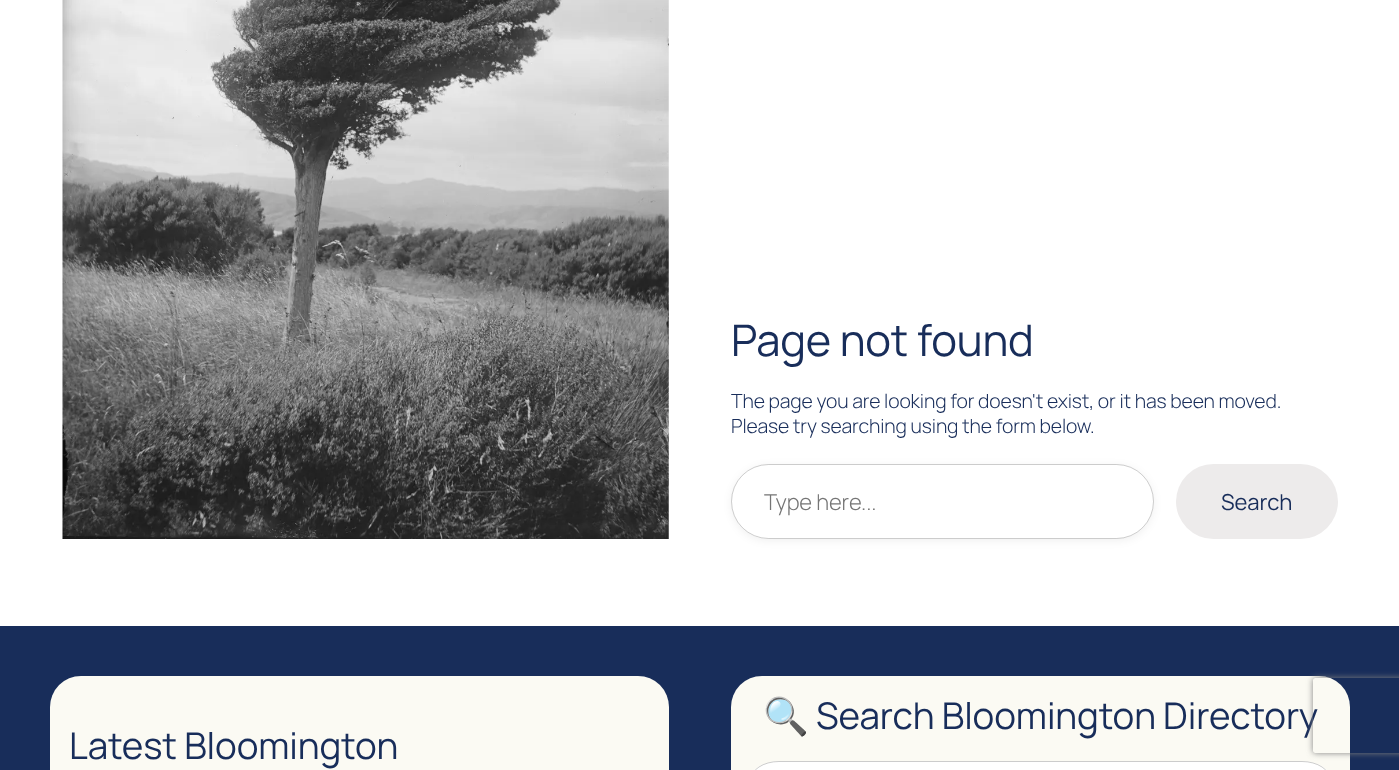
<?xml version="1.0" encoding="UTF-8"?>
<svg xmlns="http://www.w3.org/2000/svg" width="1399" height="770">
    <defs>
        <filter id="blur1" x="-50%" y="-200%" width="200%" height="500%"><feGaussianBlur stdDeviation="4"/></filter>
        <clipPath id="clip1"><path d="M 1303 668 H 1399 V 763 H 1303 Z M 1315.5 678 H 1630.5 C 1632 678 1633 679 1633 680.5 V 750.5 C 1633 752 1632 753 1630.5 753 H 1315.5 C 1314 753 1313 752 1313 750.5 V 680.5 C 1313 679 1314 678 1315.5 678 Z" clip-rule="evenodd"/></clipPath>
        <filter id="blur2" x="-50%" y="-200%" width="200%" height="500%"><feGaussianBlur stdDeviation="3"/></filter>
    </defs>
    <rect width="100%" height="100%" fill="#FFFFFF"/>
    <image x="62" y="0" width="607" height="539" href="img_01.png"/>
    <text x="731" y="356" font-family="Manrope" font-size="43.5" letter-spacing="-0.12" fill="#182D5A">Page not found</text>
    <text font-family="Manrope" font-size="19.45" font-weight="300" letter-spacing="-0.12" fill="#182D5A">
        <tspan x="731" y="408">The page you are looking for doesn't exist, or it has been moved.</tspan>
        <tspan x="731" y="433">Please try searching using the form below.</tspan>
    </text>
    <rect x="731" y="466" width="423" height="75" rx="37.5" fill="#000000" fill-opacity="0.06" filter="url(#blur1)"/>
    <rect x="731" y="464" width="423" height="75" rx="37.5" fill="#FFFFFF"/>
    <rect x="731.5" y="464.5" width="422" height="74" rx="37" fill="none" stroke="#000000" stroke-opacity="0.2"/>
    <text x="764" y="510" font-family="Manrope" font-size="22" font-weight="300" letter-spacing="-0.12" fill="#757575">Type here...</text>
    <rect x="1176" y="464" width="162" height="75" rx="37.5" fill="#EDEBEB"/>
    <text x="1221" y="510" font-family="Manrope" font-size="22" fill="#182D5A">Search</text>
    <rect x="0" y="626" width="1399" height="144" fill="#182D5A"/>
    <rect x="731" y="676" width="619" height="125" rx="31" fill="#FBFAF3"/>
    <text x="763" y="729" font-family="Noto Color Emoji" font-size="36.75" letter-spacing="-0.12" fill="#182D5A">🔍</text>
    <text x="816" y="729" font-family="Manrope" font-size="36.75" letter-spacing="-0.12" fill="#182D5A">Search Bloomington Directory</text>
    <rect x="750" y="761" width="581" height="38" rx="29" fill="#FFFFFF"/>
    <rect x="750.5" y="761.5" width="580" height="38" rx="28.5" fill="none" stroke="#000000" stroke-opacity="0.2"/>
    <rect x="50" y="676" width="619" height="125" rx="31" fill="#FBFAF3"/>
    <text x="69" y="759" font-family="Manrope" font-size="36.75" letter-spacing="-0.12" fill="#182D5A">Latest Bloomington</text>
    <g clip-path="url(#clip1)">
        <rect x="1313" y="678" width="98" height="75" rx="2.5" fill="#808080" filter="url(#blur2)"/>
    </g>
</svg>
